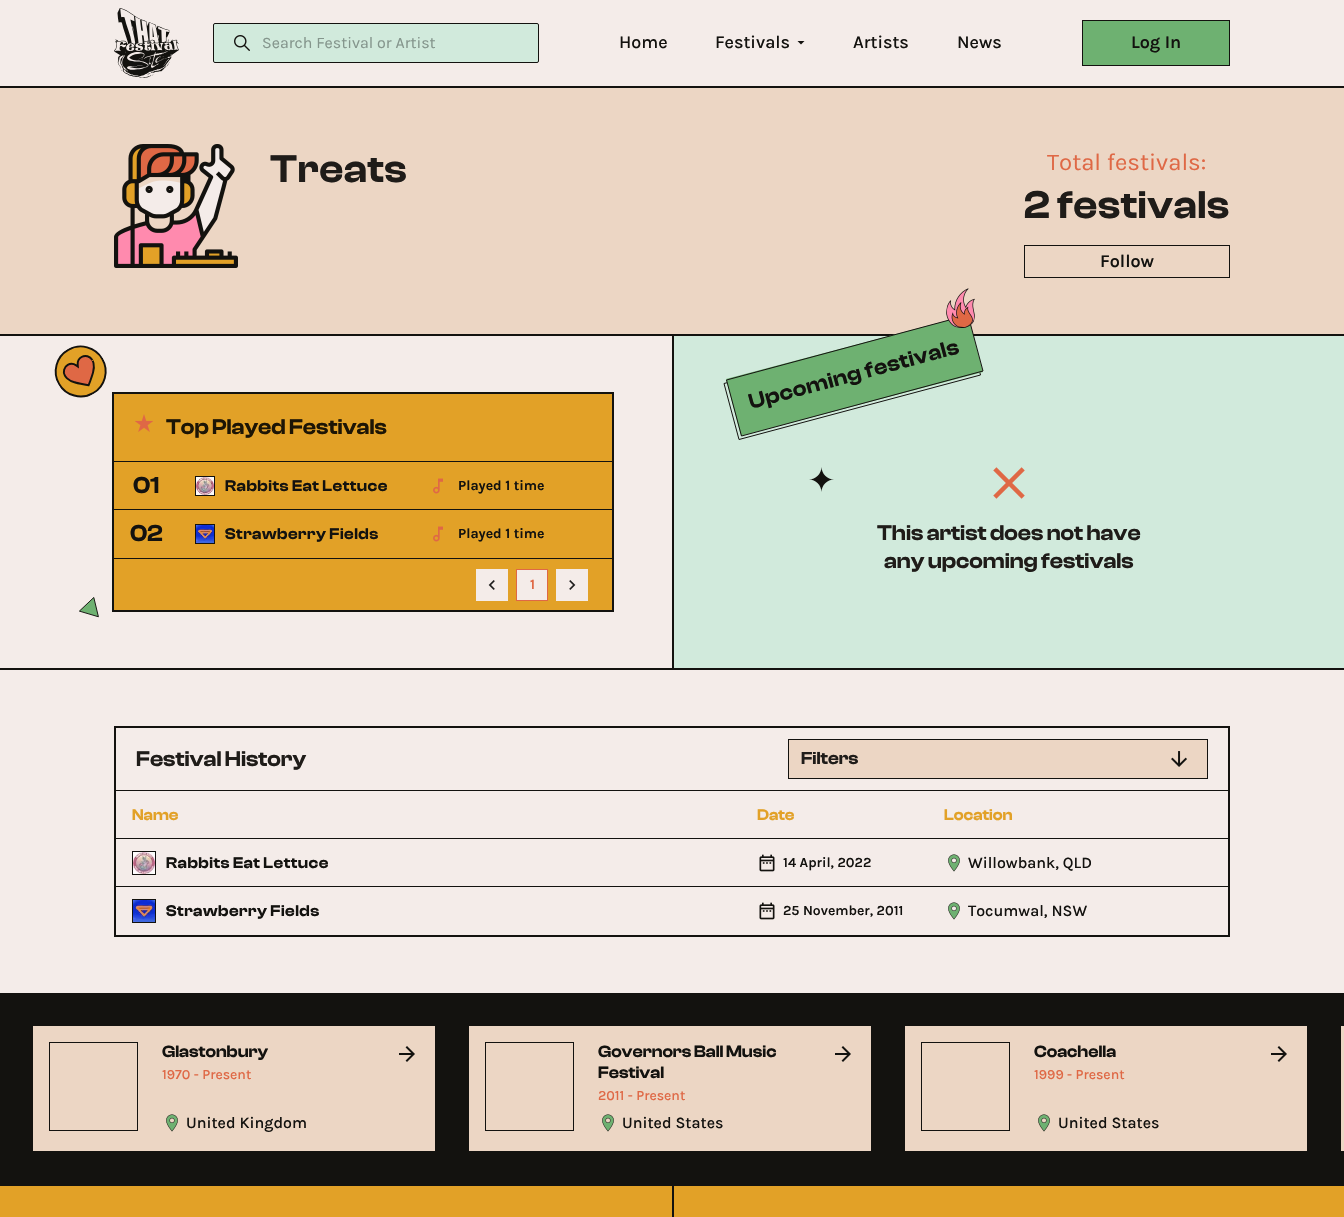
void draw(SkCanvas* canvas) {
    SkPaint paint;
    paint.setAntiAlias(true);
    auto spacedText = [&](const char* s, float x, float y, const SkFont& font, const SkPaint& ink, float letter, float word) {
        std::vector<SkGlyphID> glyphs(font.countText(s, strlen(s), SkTextEncoding::kUTF8));
        std::vector<float> xs(glyphs.size());
        font.textToGlyphs(s, strlen(s), SkTextEncoding::kUTF8, glyphs);
        font.getXPos(glyphs, xs, x);
        float extra = 0;
        for (size_t i = 0; i < glyphs.size(); i++) {
            xs[i] += extra;
            extra += letter + word * (glyphs[i] == font.unicharToGlyph(' '));
        }
        canvas->drawTextBlob(SkTextBlob::MakeFromPosHGlyphs(glyphs, xs, y, font), 0, 0, ink);
    };
    canvas->clear(0xFFF4ECE9);
    paint.setColor(0xFF13120F);
    canvas->drawRect(SkRect::MakeXYWH(0, 86, 1344, 2), paint);
    canvas->drawImageRect(SkImages::DeferredFromEncodedData(SkData::MakeFromFileName("img1.png")), SkRect::MakeXYWH(114, 8, 65, 70), SkSamplingOptions());
    paint.setColor(0xFFD1EADC);
    canvas->drawRoundRect(SkRect::MakeXYWH(213.5f, 23.5f, 325, 39), 1.5f, 1.5f, paint);
    paint.setStyle(SkPaint::kStroke_Style);
    paint.setStrokeWidth(1);
    paint.setColor(0xFF13120F);
    canvas->drawRoundRect(SkRect::MakeXYWH(213.5f, 23.5f, 325, 39), 1.5f, 1.5f, paint);
    canvas->drawImageRect(SkImages::DeferredFromEncodedData(SkData::MakeFromFileName("img2.png")), SkRect::MakeXYWH(234, 35, 16, 16), SkSamplingOptions());
    SkFont font1(fontMgr->matchFamilyStyle("Karla", SkFontStyle::Normal()), 16);
    font1.setSubpixel(true);
    paint.setStyle(SkPaint::kFill_Style);
    paint.setColor(0xFF84958C);
    canvas->drawString("Search Festival or Artist", 262, 48, font1, paint);
    SkFont font2(fontMgr->matchFamilyStyle("Karla", SkFontStyle(500, SkFontStyle::kNormal_Width, SkFontStyle::kUpright_Slant)), 18);
    font2.setSubpixel(true);
    paint.setColor(0xFF13120F);
    canvas->drawString("Home", 619, 48, font2, paint);
    canvas->drawString("Festivals", 715, 48, font2, paint);
    canvas->drawPath(SkPathBuilder().moveTo(797.5f, 41).lineTo(801, 44.5f).lineTo(804.5f, 41).close().detach(), paint);
    canvas->drawString("Artists", 853, 48, font2, paint);
    canvas->drawString("News", 957, 48, font2, paint);
    paint.setColor(0xFF6EB171);
    canvas->drawRect(SkRect::MakeXYWH(1082.5f, 20.5f, 147, 45), paint);
    paint.setStyle(SkPaint::kStroke_Style);
    paint.setColor(0xFF13120F);
    canvas->drawRect(SkRect::MakeXYWH(1082.5f, 20.5f, 147, 45), paint);
    SkFont font3(fontMgr->matchFamilyStyle("Karla", SkFontStyle(600, SkFontStyle::kNormal_Width, SkFontStyle::kUpright_Slant)), 18);
    font3.setSubpixel(true);
    paint.setStyle(SkPaint::kFill_Style);
    canvas->drawString("Log In", 1131, 48, font3, paint);
    paint.setColor(0xFFECD6C4);
    canvas->drawRect(SkRect::MakeXYWH(0, 88, 1344, 246), paint);
    paint.setColor(0xFF13120F);
    canvas->drawRect(SkRect::MakeXYWH(0, 334, 1344, 2), paint);
    canvas->drawImageRect(SkImages::DeferredFromEncodedData(SkData::MakeFromFileName("img3.png")), SkRect::MakeXYWH(114, 144, 124, 124), SkSamplingOptions());
    SkFont font4(fontMgr->matchFamilyStyle("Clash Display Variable", SkFontStyle(600, SkFontStyle::kNormal_Width, SkFontStyle::kUpright_Slant)), 40);
    font4.setSubpixel(true);
    paint.setColor(0xFF1F1C19);
    spacedText("Treats", 270, 182, font4, paint, 0.5f, 0);
    SkFont font5(fontMgr->matchFamilyStyle("Karla", SkFontStyle::Normal()), 24);
    font5.setSubpixel(true);
    paint.setColor(0xFFDF6845);
    canvas->drawString("Total festivals:", 1047, 170, font5, paint);
    paint.setColor(0xFF1F1C19);
    spacedText("2 festivals", 1024, 218, font4, paint, 0.5f, 0);
    paint.setStyle(SkPaint::kStroke_Style);
    paint.setColor(0xFF13120F);
    canvas->drawRect(SkRect::MakeXYWH(1024.5f, 245.5f, 205, 32), paint);
    paint.setStyle(SkPaint::kFill_Style);
    canvas->drawString("Follow", 1100, 267, font3, paint);
    canvas->drawImageRect(SkImages::DeferredFromEncodedData(SkData::MakeFromFileName("img4.png")), SkRect::MakeXYWH(54, 345, 53, 273), SkSamplingOptions());
    paint.setColor(0xFFE2A127);
    canvas->drawRect(SkRect::MakeXYWH(113, 393, 500, 218), paint);
    paint.setStyle(SkPaint::kStroke_Style);
    paint.setStrokeWidth(2);
    paint.setColor(0xFF13120F);
    canvas->drawRect(SkRect::MakeXYWH(113, 393, 500, 218), paint);
    paint.setStyle(SkPaint::kFill_Style);
    canvas->drawRect(SkRect::MakeXYWH(114, 461, 498, 1), paint);
    canvas->drawImageRect(SkImages::DeferredFromEncodedData(SkData::MakeFromFileName("img5.png")), SkRect::MakeXYWH(135, 414, 18, 18), SkSamplingOptions());
    SkFont font6(fontMgr->matchFamilyStyle("Clash Display Variable", SkFontStyle(600, SkFontStyle::kNormal_Width, SkFontStyle::kUpright_Slant)), 22);
    font6.setSubpixel(true);
    paint.setColor(0xFF1D1505);
    canvas->drawString("Top Played Festivals", 166, 434, font6, paint);
    paint.setColor(0xFF13120F);
    canvas->drawRect(SkRect::MakeXYWH(114, 509, 498, 1), paint);
    SkFont font7(fontMgr->matchFamilyStyle("Clash Display Variable", SkFontStyle(600, SkFontStyle::kNormal_Width, SkFontStyle::kUpright_Slant)), 24);
    font7.setSubpixel(true);
    canvas->drawString("01", 133, 493, font7, paint);
    paint.setStyle(SkPaint::kStroke_Style);
    paint.setStrokeWidth(1);
    canvas->drawRect(SkRect::MakeXYWH(195.5f, 476.5f, 19, 19), paint);
    canvas->drawImageRect(SkImages::DeferredFromEncodedData(SkData::MakeFromFileName("img6.png")), SkRect::MakeXYWH(196, 477, 18, 18), SkSamplingOptions());
    SkFont font8(fontMgr->matchFamilyStyle("Clash Display Variable", SkFontStyle(600, SkFontStyle::kNormal_Width, SkFontStyle::kUpright_Slant)), 16);
    font8.setSubpixel(true);
    paint.setStyle(SkPaint::kFill_Style);
    spacedText("Rabbits Eat Lettuce", 225, 491, font8, paint, 0.5f, 0);
    canvas->drawImageRect(SkImages::DeferredFromEncodedData(SkData::MakeFromFileName("img7.png")), SkRect::MakeXYWH(433, 478, 10, 16), SkSamplingOptions());
    SkFont font9(fontMgr->matchFamilyStyle("Karla", SkFontStyle::Bold()), 14);
    font9.setSubpixel(true);
    canvas->drawString("Played 1 time", 458, 490, font9, paint);
    canvas->drawString("02", 130, 541, font7, paint);
    paint.setStyle(SkPaint::kStroke_Style);
    canvas->drawRect(SkRect::MakeXYWH(195.5f, 524.5f, 19, 19), paint);
    canvas->drawImageRect(SkImages::DeferredFromEncodedData(SkData::MakeFromFileName("img8.png")), SkRect::MakeXYWH(196, 525, 18, 18), SkSamplingOptions());
    paint.setStyle(SkPaint::kFill_Style);
    spacedText("Strawberry Fields", 225, 539, font8, paint, 0.5f, 0);
    canvas->drawImageRect(SkImages::DeferredFromEncodedData(SkData::MakeFromFileName("img7.png")), SkRect::MakeXYWH(433, 526, 10, 16), SkSamplingOptions());
    canvas->drawString("Played 1 time", 458, 538, font9, paint);
    canvas->drawRect(SkRect::MakeXYWH(114, 558, 498, 1), paint);
    paint.setColor(0xFFF4ECE9);
    canvas->drawRect(SkRect::MakeXYWH(476, 569, 32, 32), paint);
    canvas->drawImageRect(SkImages::DeferredFromEncodedData(SkData::MakeFromFileName("img9.png")), SkRect::MakeXYWH(488, 580, 7, 10), SkSamplingOptions());
    canvas->drawRect(SkRect::MakeXYWH(516.5f, 569.5f, 31, 31), paint);
    paint.setStyle(SkPaint::kStroke_Style);
    paint.setColor(0xFFDF6845);
    canvas->drawRect(SkRect::MakeXYWH(516.5f, 569.5f, 31, 31), paint);
    paint.setStyle(SkPaint::kFill_Style);
    canvas->drawString("1", 530, 589, font9, paint);
    paint.setColor(0xFFF4ECE9);
    canvas->drawRect(SkRect::MakeXYWH(556, 569, 32, 32), paint);
    canvas->drawImageRect(SkImages::DeferredFromEncodedData(SkData::MakeFromFileName("img10.png")), SkRect::MakeXYWH(569, 580, 7, 10), SkSamplingOptions());
    paint.setColor(0xFF13120F);
    canvas->drawRect(SkRect::MakeXYWH(672, 336, 2, 332), paint);
    paint.setColor(0xFFD1EADC);
    canvas->drawRect(SkRect::MakeXYWH(674, 336, 670, 332), paint);
    canvas->drawImageRect(SkImages::DeferredFromEncodedData(SkData::MakeFromFileName("img11.png")), SkRect::MakeXYWH(809, 467, 25, 25), SkSamplingOptions());
    canvas->drawPath(SkPathBuilder().moveTo(724, 383).lineTo(966, 318).lineTo(981, 375).lineTo(739, 440).close().detach(), paint);
    paint.setStyle(SkPaint::kStroke_Style);
    paint.setColor(0xFF13120F);
    canvas->drawPath(SkPathBuilder().moveTo(724, 383.5f).lineTo(965.5f, 319).lineTo(980.5f, 375).lineTo(739, 439.5f).close().detach(), paint);
    paint.setStyle(SkPaint::kFill_Style);
    paint.setColor(0xFF6EB171);
    canvas->drawPath(SkPathBuilder().moveTo(726, 379).lineTo(968, 315).lineTo(983, 372).lineTo(741, 436).close().detach(), paint);
    paint.setStyle(SkPaint::kStroke_Style);
    paint.setColor(0xFF13120F);
    canvas->drawPath(SkPathBuilder().moveTo(726.5f, 380).lineTo(968, 315).lineTo(983, 371).lineTo(741.5f, 436).close().detach(), paint);
    canvas->drawImageRect(SkImages::DeferredFromEncodedData(SkData::MakeFromFileName("img12.png")), SkRect::MakeXYWH(946, 288, 29, 40), SkSamplingOptions());
    paint.setStyle(SkPaint::kFill_Style);
    canvas->save();
    canvas->rotate(-15, 751, 409);
    spacedText("Upcoming festivals", 751, 409, font6, paint, 0.5f, 0);
    canvas->restore();
    canvas->drawImageRect(SkImages::DeferredFromEncodedData(SkData::MakeFromFileName("img13.png")), SkRect::MakeXYWH(993, 467, 32, 32), SkSamplingOptions());
    paint.setColor(0xFF1F1C19);
    canvas->drawString("This artist does not have", 877, 540, font6, paint);
    canvas->drawString("any upcoming festivals", 884, 568, font6, paint);
    paint.setColor(0xFF13120F);
    canvas->drawRect(SkRect::MakeXYWH(0, 668, 1344, 2), paint);
    paint.setStyle(SkPaint::kStroke_Style);
    paint.setStrokeWidth(2);
    canvas->drawRect(SkRect::MakeXYWH(115, 727, 1114, 209), paint);
    paint.setStyle(SkPaint::kFill_Style);
    canvas->drawRect(SkRect::MakeXYWH(116, 790, 1112, 1), paint);
    paint.setColor(0xFF1F1C19);
    canvas->drawString("Festival History", 136, 766, font6, paint);
    paint.setColor(0xFFECD6C4);
    canvas->drawRect(SkRect::MakeXYWH(788.5f, 739.5f, 419, 39), paint);
    paint.setStyle(SkPaint::kStroke_Style);
    paint.setStrokeWidth(1);
    paint.setColor(0xFF13120F);
    canvas->drawRect(SkRect::MakeXYWH(788.5f, 739.5f, 419, 39), paint);
    SkFont font10(fontMgr->matchFamilyStyle("Clash Display Variable", SkFontStyle(600, SkFontStyle::kNormal_Width, SkFontStyle::kUpright_Slant)), 18);
    font10.setSubpixel(true);
    paint.setStyle(SkPaint::kFill_Style);
    paint.setColor(0xFF1F1C19);
    canvas->drawString("Filters", 801, 764, font10, paint);
    canvas->drawImageRect(SkImages::DeferredFromEncodedData(SkData::MakeFromFileName("img14.png")), SkRect::MakeXYWH(1171, 751, 16, 16), SkSamplingOptions());
    paint.setColor(0xFF13120F);
    canvas->drawRect(SkRect::MakeXYWH(116, 838, 1112, 1), paint);
    paint.setColor(0xFFE2A127);
    canvas->drawString("Name", 132, 820, font8, paint);
    canvas->drawString("Date", 757, 820, font8, paint);
    canvas->drawString("Location", 944, 820, font8, paint);
    paint.setColor(0xFF13120F);
    canvas->drawRect(SkRect::MakeXYWH(116, 886, 1112, 1), paint);
    paint.setStyle(SkPaint::kStroke_Style);
    canvas->drawRect(SkRect::MakeXYWH(132.5f, 851.5f, 23, 23), paint);
    canvas->drawImageRect(SkImages::DeferredFromEncodedData(SkData::MakeFromFileName("img15.png")), SkRect::MakeXYWH(133, 852, 22, 22), SkSamplingOptions());
    paint.setStyle(SkPaint::kFill_Style);
    spacedText("Rabbits Eat Lettuce", 166, 868, font8, paint, 0.5f, 0);
    canvas->drawImageRect(SkImages::DeferredFromEncodedData(SkData::MakeFromFileName("img16.png")), SkRect::MakeXYWH(759, 854, 16, 18), SkSamplingOptions());
    SkFont font11(fontMgr->matchFamilyStyle("Karla", SkFontStyle(600, SkFontStyle::kNormal_Width, SkFontStyle::kUpright_Slant)), 14);
    font11.setSubpixel(true);
    canvas->drawString("14 April, 2022", 783, 867, font11, paint);
    canvas->drawImageRect(SkImages::DeferredFromEncodedData(SkData::MakeFromFileName("img17.png")), SkRect::MakeXYWH(948, 854, 12, 18), SkSamplingOptions());
    SkFont font12(fontMgr->matchFamilyStyle("Karla", SkFontStyle(500, SkFontStyle::kNormal_Width, SkFontStyle::kUpright_Slant)), 16);
    font12.setSubpixel(true);
    canvas->drawString("Willowbank, QLD", 968, 868, font12, paint);
    paint.setStyle(SkPaint::kStroke_Style);
    canvas->drawRect(SkRect::MakeXYWH(132.5f, 899.5f, 23, 23), paint);
    canvas->drawImageRect(SkImages::DeferredFromEncodedData(SkData::MakeFromFileName("img18.png")), SkRect::MakeXYWH(133, 900, 22, 22), SkSamplingOptions());
    paint.setStyle(SkPaint::kFill_Style);
    spacedText("Strawberry Fields", 166, 916, font8, paint, 0.5f, 0);
    canvas->drawImageRect(SkImages::DeferredFromEncodedData(SkData::MakeFromFileName("img16.png")), SkRect::MakeXYWH(759, 902, 16, 18), SkSamplingOptions());
    canvas->drawString("25 November, 2011", 783, 915, font11, paint);
    canvas->drawImageRect(SkImages::DeferredFromEncodedData(SkData::MakeFromFileName("img17.png")), SkRect::MakeXYWH(948, 902, 12, 18), SkSamplingOptions());
    canvas->drawString("Tocumwal, NSW", 968, 916, font12, paint);
    canvas->drawRect(SkRect::MakeXYWH(0, 993, 1344, 193), paint);
    paint.setColor(0xFFECD6C4);
    canvas->drawRect(SkRect::MakeXYWH(33, 1026, 402, 125), paint);
    paint.setStyle(SkPaint::kStroke_Style);
    paint.setColor(0xFF13120F);
    canvas->drawRect(SkRect::MakeXYWH(49.5f, 1042.5f, 88, 88), paint);
    SkFont font13(fontMgr->matchFamilyStyle("Clash Display Variable", SkFontStyle(600, SkFontStyle::kNormal_Width, SkFontStyle::kUpright_Slant)), 17);
    font13.setSubpixel(true);
    paint.setStyle(SkPaint::kFill_Style);
    canvas->drawString("Glastonbury", 162, 1057, font13, paint);
    SkFont font14(fontMgr->matchFamilyStyle("Karla", SkFontStyle(500, SkFontStyle::kNormal_Width, SkFontStyle::kUpright_Slant)), 14);
    font14.setSubpixel(true);
    paint.setColor(0xFFDF6845);
    canvas->drawString("1970 - Present", 162, 1079, font14, paint);
    canvas->drawImageRect(SkImages::DeferredFromEncodedData(SkData::MakeFromFileName("img19.png")), SkRect::MakeXYWH(166, 1114, 12, 18), SkSamplingOptions());
    paint.setColor(0xFF13120F);
    canvas->drawString("United Kingdom", 186, 1128, font12, paint);
    canvas->drawImageRect(SkImages::DeferredFromEncodedData(SkData::MakeFromFileName("img20.png")), SkRect::MakeXYWH(399, 1046, 16, 16), SkSamplingOptions());
    paint.setColor(0xFFECD6C4);
    canvas->drawRect(SkRect::MakeXYWH(469, 1026, 402, 125), paint);
    paint.setStyle(SkPaint::kStroke_Style);
    paint.setColor(0xFF13120F);
    canvas->drawRect(SkRect::MakeXYWH(485.5f, 1042.5f, 88, 88), paint);
    paint.setStyle(SkPaint::kFill_Style);
    canvas->drawString("Governors Ball Music", 598, 1057, font13, paint);
    canvas->drawString("Festival", 598, 1078, font13, paint);
    paint.setColor(0xFFDF6845);
    canvas->drawString("2011 - Present", 598, 1100, font14, paint);
    canvas->drawImageRect(SkImages::DeferredFromEncodedData(SkData::MakeFromFileName("img19.png")), SkRect::MakeXYWH(602, 1114, 12, 18), SkSamplingOptions());
    paint.setColor(0xFF13120F);
    canvas->drawString("United States", 622, 1128, font12, paint);
    canvas->drawImageRect(SkImages::DeferredFromEncodedData(SkData::MakeFromFileName("img20.png")), SkRect::MakeXYWH(835, 1046, 16, 16), SkSamplingOptions());
    paint.setColor(0xFFECD6C4);
    canvas->drawRect(SkRect::MakeXYWH(905, 1026, 402, 125), paint);
    paint.setStyle(SkPaint::kStroke_Style);
    paint.setColor(0xFF13120F);
    canvas->drawRect(SkRect::MakeXYWH(921.5f, 1042.5f, 88, 88), paint);
    paint.setStyle(SkPaint::kFill_Style);
    canvas->drawString("Coachella", 1034, 1057, font13, paint);
    paint.setColor(0xFFDF6845);
    canvas->drawString("1999 - Present", 1034, 1079, font14, paint);
    canvas->drawImageRect(SkImages::DeferredFromEncodedData(SkData::MakeFromFileName("img19.png")), SkRect::MakeXYWH(1038, 1114, 12, 18), SkSamplingOptions());
    paint.setColor(0xFF13120F);
    canvas->drawString("United States", 1058, 1128, font12, paint);
    canvas->drawImageRect(SkImages::DeferredFromEncodedData(SkData::MakeFromFileName("img20.png")), SkRect::MakeXYWH(1271, 1046, 16, 16), SkSamplingOptions());
    paint.setColor(0xFFECD6C4);
    canvas->drawRect(SkRect::MakeXYWH(1340.5f, 1025.5f, 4, 126), paint);
    paint.setStyle(SkPaint::kStroke_Style);
    paint.setColor(0xFF13120F);
    canvas->drawRect(SkRect::MakeXYWH(1340.5f, 1025.5f, 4, 126), paint);
    paint.setStyle(SkPaint::kFill_Style);
    paint.setColor(0xFFE2A127);
    canvas->drawRect(SkRect::MakeXYWH(0, 1186, 1344, 31), paint);
    paint.setColor(0xFF13120F);
    canvas->drawRect(SkRect::MakeXYWH(672, 1186, 2, 31), paint);
}
